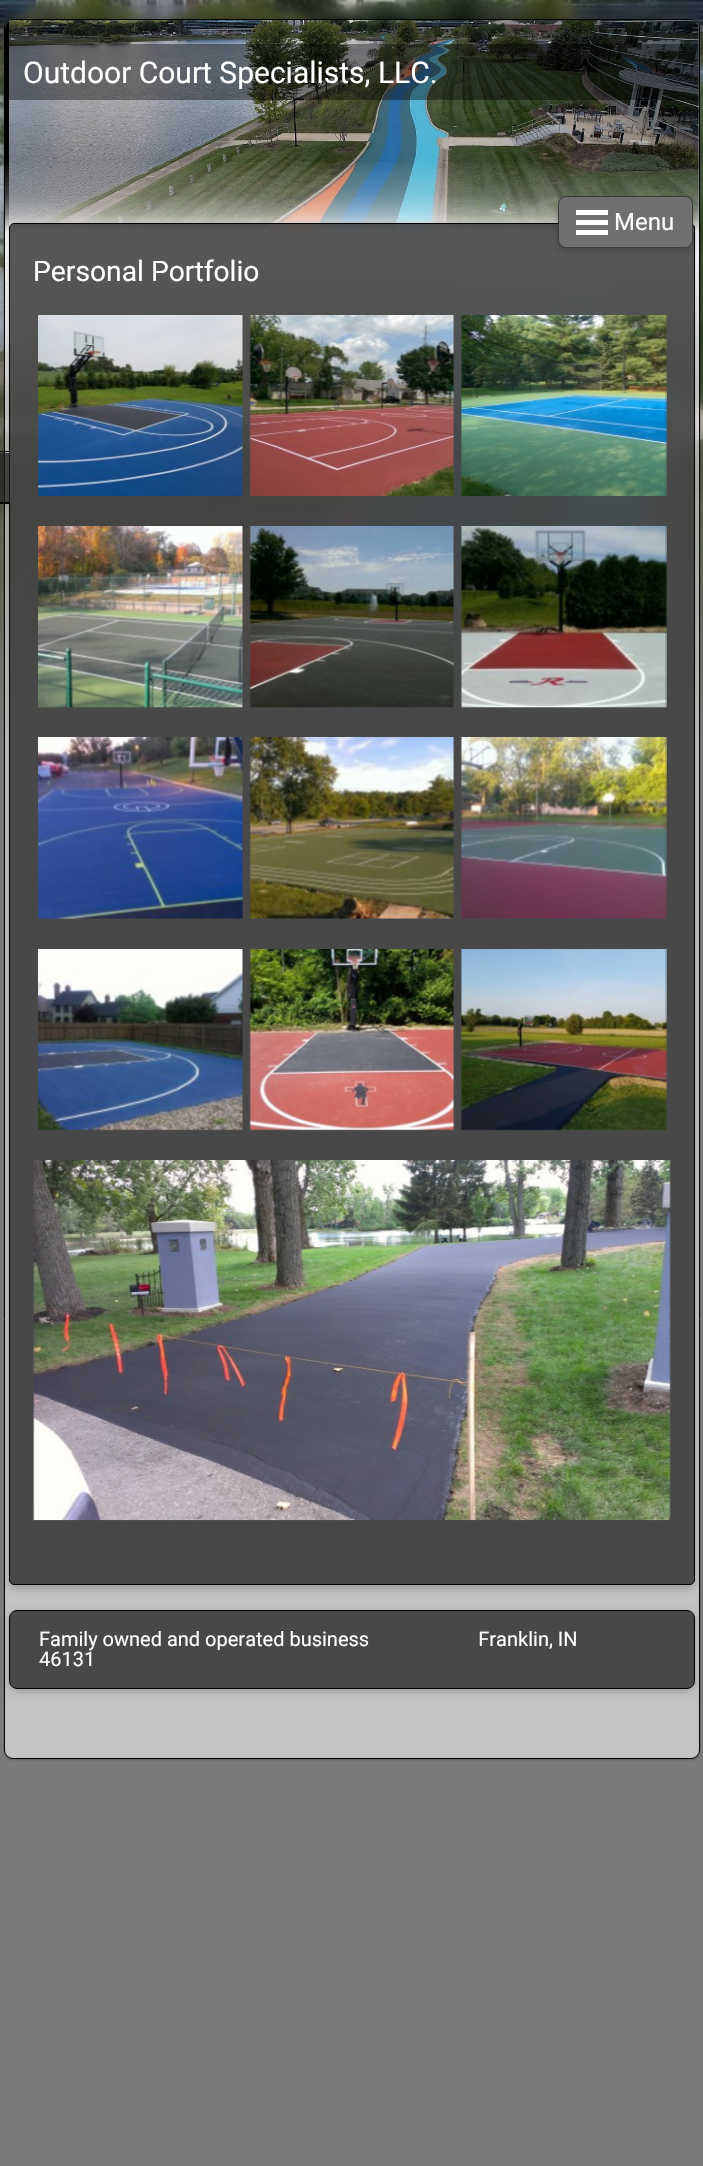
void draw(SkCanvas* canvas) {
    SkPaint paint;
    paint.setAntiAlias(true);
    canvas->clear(0xFFFFFFFF);
    canvas->drawImageRect(SkImages::DeferredFromEncodedData(SkData::MakeFromFileName("img1.png")), SkRect::MakeXYWH(0, 0, 703, 741), SkSamplingOptions());
    canvas->drawImageRect(SkImages::DeferredFromEncodedData(SkData::MakeFromFileName("img2.png")), SkRect::MakeXYWH(0, 0, 703, 741), SkSamplingOptions());
    {
        const SkColor colors[] = {0x007A7A7A, 0xFF7A7A7A};
        const float stops[] = {0, 0.17f};
        const SkPoint ends[] = {{352, 375}, {352, 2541}};
        paint.setShader(SkGradientShader::MakeLinear(ends, colors, stops, 2, SkTileMode::kClamp));
        paint.setAlpha(255);
    }
    canvas->drawRect(SkRect::MakeXYWH(0, 384, 703, 1782), paint);
    canvas->save();
    canvas->clipPath(SkPathBuilder(SkPathFillType::kEvenOdd).moveTo(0, 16).lineTo(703, 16).lineTo(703, 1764).lineTo(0, 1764).close().moveTo(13, 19).lineTo(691, 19).cubicTo(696, 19, 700, 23, 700, 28).lineTo(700, 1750).cubicTo(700, 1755, 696, 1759, 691, 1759).lineTo(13, 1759).cubicTo(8, 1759, 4, 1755, 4, 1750).lineTo(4, 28).cubicTo(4, 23, 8, 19, 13, 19).close().detach(), true);
    paint.setShader(nullptr);
    paint.setColor(0x3B000000);
    paint.setMaskFilter(SkMaskFilter::MakeBlur(kNormal_SkBlurStyle, 1));
    canvas->drawRoundRect(SkRect::MakeXYWH(4, 20, 696, 1740), 9, 9, paint);
    paint.setMaskFilter(nullptr);
    canvas->restore();
    paint.setColor(0x8CFFFFFF);
    canvas->drawRoundRect(SkRect::MakeXYWH(4.5f, 19.5f, 695, 1739), 8.5f, 8.5f, paint);
    paint.setStyle(SkPaint::kStroke_Style);
    paint.setStrokeWidth(1);
    paint.setColor(0xFF000000);
    canvas->drawRoundRect(SkRect::MakeXYWH(4.5f, 19.5f, 695, 1739), 8.5f, 8.5f, paint);
    canvas->drawImageRect(SkImages::DeferredFromEncodedData(SkData::MakeFromFileName("img3.png")), SkRect::MakeXYWH(5, 20, 694, 213), SkSamplingOptions());
    paint.setStyle(SkPaint::kFill_Style);
    {
        const SkColor colors[] = {0x00FFFFFF, 0x40FFFFFF, 0x80FFFFFF, 0xFFFFFFFF};
        const float stops[] = {0, 0.5f, 0.75f, 1};
        const SkPoint ends[] = {{352, 159}, {352, 233}};
        paint.setShader(SkGradientShader::MakeLinear(ends, colors, stops, 4, SkTileMode::kClamp));
        paint.setAlpha(255);
    }
    canvas->drawRect(SkRect::MakeXYWH(5, 162, 694, 71), paint);
    {
        const SkColor colors[] = {0x00FFFFFF, 0xFFFFFFFF};
        const float stops[] = {0, 0.9f};
        const SkPoint ends[] = {{352, 479}, {352, 233}};
        paint.setShader(SkGradientShader::MakeLinear(ends, colors, stops, 2, SkTileMode::kClamp));
        paint.setAlpha(255);
    }
    canvas->drawRect(SkRect::MakeXYWH(5, 233, 694, 239), paint);
    paint.setShader(nullptr);
    paint.setColor(0x66000000);
    canvas->drawRect(SkRect::MakeXYWH(9, 44, 690, 56), paint);
    SkFont font1(fontMgr->matchFamilyStyle("Roboto", SkFontStyle::Normal()), 30);
    font1.setSubpixel(true);
    paint.setColor(0xFFFFFFFF);
    canvas->drawString("Outdoor Court Specialists, LLC.", 23, 83, font1, paint);
    canvas->save();
    canvas->clipPath(SkPathBuilder(SkPathFillType::kEvenOdd).moveTo(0, 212).lineTo(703, 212).lineTo(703, 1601).lineTo(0, 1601).close().moveTo(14, 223).lineTo(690, 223).cubicTo(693, 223, 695, 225, 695, 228).lineTo(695, 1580).cubicTo(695, 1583, 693, 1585, 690, 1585).lineTo(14, 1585).cubicTo(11, 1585, 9, 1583, 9, 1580).lineTo(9, 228).cubicTo(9, 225, 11, 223, 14, 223).close().detach(), true);
    paint.setColor(0x3B000000);
    paint.setMaskFilter(SkMaskFilter::MakeBlur(kNormal_SkBlurStyle, 4));
    canvas->drawRoundRect(SkRect::MakeXYWH(9, 225, 686, 1363), 5, 5, paint);
    paint.setMaskFilter(nullptr);
    canvas->restore();
    paint.setColor(0xBF1F1F1F);
    canvas->drawRoundRect(SkRect::MakeXYWH(9.5f, 223.5f, 685, 1361), 4.5f, 4.5f, paint);
    paint.setStyle(SkPaint::kStroke_Style);
    paint.setColor(0xFF000000);
    canvas->drawRoundRect(SkRect::MakeXYWH(9.5f, 223.5f, 685, 1361), 4.5f, 4.5f, paint);
    paint.setStyle(SkPaint::kFill_Style);
    paint.setColor(0x3B000000);
    paint.setMaskFilter(SkMaskFilter::MakeBlur(kNormal_SkBlurStyle, 4));
    canvas->drawRoundRect(SkRect::MakeXYWH(558, 199, 135, 51), 8, 8, paint);
    paint.setMaskFilter(nullptr);
    paint.setColor(0xFF707070);
    canvas->drawRoundRect(SkRect::MakeXYWH(558.5f, 196.5f, 134, 51), 7.5f, 7.5f, paint);
    paint.setStyle(SkPaint::kStroke_Style);
    paint.setColor(0xFF3B3B3B);
    canvas->drawRoundRect(SkRect::MakeXYWH(558.5f, 196.5f, 134, 51), 7.5f, 7.5f, paint);
    paint.setStyle(SkPaint::kFill_Style);
    paint.setColor(0xFFFFFFFF);
    canvas->drawRect(SkRect::MakeXYWH(576, 210, 32, 5), paint);
    canvas->drawRect(SkRect::MakeXYWH(576, 220, 32, 5), paint);
    canvas->drawRect(SkRect::MakeXYWH(576, 230, 32, 5), paint);
    SkFont font2(fontMgr->matchFamilyStyle("Roboto", SkFontStyle::Normal()), 24);
    font2.setSubpixel(true);
    canvas->drawString("Menu", 614, 230, font2, paint);
    SkFont font3(fontMgr->matchFamilyStyle("Roboto", SkFontStyle::Normal()), 28.25f);
    font3.setSubpixel(true);
    canvas->drawString("Personal Portfolio", 33, 281, font3, paint);
    canvas->drawImageRect(SkImages::DeferredFromEncodedData(SkData::MakeFromFileName("img4.png")), SkRect::MakeXYWH(38, 315, 205, 182), SkSamplingOptions());
    canvas->drawImageRect(SkImages::DeferredFromEncodedData(SkData::MakeFromFileName("img5.png")), SkRect::MakeXYWH(249, 315, 206, 182), SkSamplingOptions());
    canvas->drawImageRect(SkImages::DeferredFromEncodedData(SkData::MakeFromFileName("img6.png")), SkRect::MakeXYWH(460, 315, 207, 182), SkSamplingOptions());
    canvas->drawImageRect(SkImages::DeferredFromEncodedData(SkData::MakeFromFileName("img7.png")), SkRect::MakeXYWH(38, 526, 205, 182), SkSamplingOptions());
    canvas->drawImageRect(SkImages::DeferredFromEncodedData(SkData::MakeFromFileName("img8.png")), SkRect::MakeXYWH(249, 526, 205, 182), SkSamplingOptions());
    canvas->drawImageRect(SkImages::DeferredFromEncodedData(SkData::MakeFromFileName("img9.png")), SkRect::MakeXYWH(460, 526, 207, 182), SkSamplingOptions());
    canvas->drawImageRect(SkImages::DeferredFromEncodedData(SkData::MakeFromFileName("img10.png")), SkRect::MakeXYWH(38, 737, 205, 182), SkSamplingOptions());
    canvas->drawImageRect(SkImages::DeferredFromEncodedData(SkData::MakeFromFileName("img11.png")), SkRect::MakeXYWH(249, 737, 206, 182), SkSamplingOptions());
    canvas->drawImageRect(SkImages::DeferredFromEncodedData(SkData::MakeFromFileName("img12.png")), SkRect::MakeXYWH(460, 737, 207, 182), SkSamplingOptions());
    canvas->drawImageRect(SkImages::DeferredFromEncodedData(SkData::MakeFromFileName("img13.png")), SkRect::MakeXYWH(38, 949, 205, 182), SkSamplingOptions());
    canvas->drawImageRect(SkImages::DeferredFromEncodedData(SkData::MakeFromFileName("img14.png")), SkRect::MakeXYWH(249, 949, 206, 182), SkSamplingOptions());
    canvas->drawImageRect(SkImages::DeferredFromEncodedData(SkData::MakeFromFileName("img15.png")), SkRect::MakeXYWH(460, 949, 207, 182), SkSamplingOptions());
    canvas->drawImageRect(SkImages::DeferredFromEncodedData(SkData::MakeFromFileName("img16.png")), SkRect::MakeXYWH(33, 1160, 638, 361), SkSamplingOptions());
    canvas->save();
    canvas->clipRect(SkRect::MakeXYWH(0, 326, 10, 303));
    canvas->clipPath(SkPathBuilder(SkPathFillType::kEvenOdd).moveTo(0, 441).lineTo(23, 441).lineTo(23, 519).lineTo(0, 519).close().moveTo(-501, 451).lineTo(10, 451).lineTo(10, 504).lineTo(-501, 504).cubicTo(-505.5f, 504, -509, 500.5f, -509, 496).lineTo(-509, 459).cubicTo(-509, 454.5f, -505.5f, 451, -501, 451).close().detach(), true);
    paint.setColor(0x3B000000);
    paint.setMaskFilter(SkMaskFilter::MakeBlur(kNormal_SkBlurStyle, 4));
    canvas->drawRoundRect(SkRect::MakeXYWH(-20, 454, 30, 52), 8, 8, paint);
    paint.setMaskFilter(nullptr);
    canvas->restore();
    paint.setColor(0xBF1F1F1F);
    canvas->drawRect(SkRect::MakeXYWH(0, 453, 10, 49), paint);
    paint.setColor(0xFF000000);
    canvas->drawPath(SkPathBuilder(SkPathFillType::kEvenOdd).moveTo(-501, 451).lineTo(10, 451).lineTo(10, 504).lineTo(-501, 504).cubicTo(-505, 504, -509, 500, -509, 496).lineTo(-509, 459).cubicTo(-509, 455, -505, 451, -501, 451).close().moveTo(-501, 452).lineTo(10, 452).lineTo(10, 502).lineTo(-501, 502).cubicTo(-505, 502, -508, 500, -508, 496).lineTo(-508, 459).cubicTo(-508, 455, -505, 452, -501, 452).close().detach(), paint);
    canvas->save();
    canvas->clipPath(SkPathBuilder(SkPathFillType::kEvenOdd).moveTo(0, 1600).lineTo(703, 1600).lineTo(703, 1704).lineTo(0, 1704).close().moveTo(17, 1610).lineTo(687, 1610).cubicTo(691.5f, 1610, 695, 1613.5f, 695, 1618).lineTo(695, 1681).cubicTo(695, 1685.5f, 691.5f, 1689, 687, 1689).lineTo(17, 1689).cubicTo(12.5f, 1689, 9, 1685.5f, 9, 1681).lineTo(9, 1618).cubicTo(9, 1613.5f, 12.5f, 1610, 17, 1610).close().detach(), true);
    paint.setColor(0x3B000000);
    paint.setMaskFilter(SkMaskFilter::MakeBlur(kNormal_SkBlurStyle, 4));
    canvas->drawRoundRect(SkRect::MakeXYWH(9, 1613, 686, 78), 8, 8, paint);
    paint.setMaskFilter(nullptr);
    canvas->restore();
    paint.setColor(0xBF1F1F1F);
    canvas->drawRoundRect(SkRect::MakeXYWH(9.5f, 1610.5f, 685, 78), 7.5f, 7.5f, paint);
    paint.setStyle(SkPaint::kStroke_Style);
    paint.setColor(0xFF000000);
    canvas->drawRoundRect(SkRect::MakeXYWH(9.5f, 1610.5f, 685, 78), 7.5f, 7.5f, paint);
    SkFont font4(fontMgr->matchFamilyStyle("Roboto", SkFontStyle::Normal()), 20);
    font4.setSubpixel(true);
    paint.setStyle(SkPaint::kFill_Style);
    paint.setColor(0xFFFFFFFF);
    canvas->drawString("Family owned and operated business                      Franklin, IN", 39, 1646, font4, paint);
    canvas->drawString("46131", 39, 1666, font4, paint);
}
